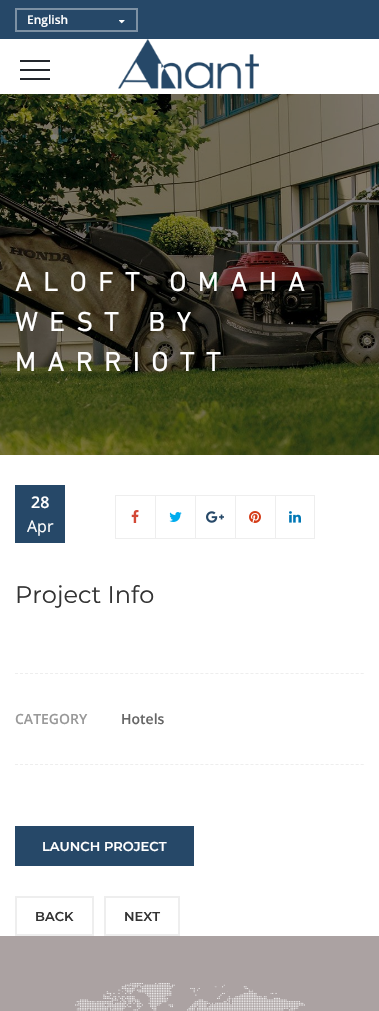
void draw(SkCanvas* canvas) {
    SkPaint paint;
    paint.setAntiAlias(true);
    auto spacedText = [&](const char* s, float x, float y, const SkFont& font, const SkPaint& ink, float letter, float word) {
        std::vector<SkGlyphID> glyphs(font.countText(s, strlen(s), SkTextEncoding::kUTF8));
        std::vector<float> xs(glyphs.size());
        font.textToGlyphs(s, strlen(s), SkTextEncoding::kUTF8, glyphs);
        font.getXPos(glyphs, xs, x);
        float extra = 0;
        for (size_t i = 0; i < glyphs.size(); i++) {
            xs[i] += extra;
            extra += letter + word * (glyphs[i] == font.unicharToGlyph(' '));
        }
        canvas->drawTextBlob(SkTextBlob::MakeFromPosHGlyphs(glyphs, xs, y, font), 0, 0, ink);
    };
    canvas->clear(0xFFFFFFFF);
    paint.setColor(0xFF264868);
    canvas->drawRect(SkRect::MakeXYWH(0, 0, 379, 39), paint);
    canvas->drawImageRect(SkImages::DeferredFromEncodedData(SkData::MakeFromFileName("img1.png")), SkRect::MakeXYWH(119, 20, 6, 4), SkSamplingOptions());
    paint.setStyle(SkPaint::kStroke_Style);
    paint.setStrokeWidth(2);
    paint.setColor(0xFF7D91A4);
    canvas->drawRect(SkRect::MakeXYWH(16, 9, 121, 22), paint);
    SkFont font1(fontMgr->matchFamilyStyle("Open Sans", SkFontStyle(600, SkFontStyle::kNormal_Width, SkFontStyle::kUpright_Slant)), 12);
    font1.setSubpixel(true);
    paint.setStyle(SkPaint::kFill_Style);
    paint.setColor(0xFFFFFFFF);
    canvas->drawString("English", 27, 24, font1, paint);
    paint.setColor(0xFF23282D);
    canvas->drawRect(SkRect::MakeXYWH(20, 69, 30, 2), paint);
    canvas->drawRect(SkRect::MakeXYWH(20, 60, 30, 2), paint);
    canvas->drawRect(SkRect::MakeXYWH(20, 78, 30, 2), paint);
    canvas->drawImageRect(SkImages::DeferredFromEncodedData(SkData::MakeFromFileName("img2.png")), SkRect::MakeXYWH(118, 39, 141, 50), SkSamplingOptions());
    canvas->drawImageRect(SkImages::DeferredFromEncodedData(SkData::MakeFromFileName("img3.png")), SkRect::MakeXYWH(0, 94, 379, 361), SkSamplingOptions());
    SkFont font2(fontMgr->matchFamilyStyle("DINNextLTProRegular", SkFontStyle::Normal()), 28);
    font2.setSubpixel(true);
    paint.setColor(0xFFFFFFFF);
    spacedText("ALOFT OMAHA", 15, 291, font2, paint, 11.25f, 0);
    spacedText("WEST BY", 15, 331, font2, paint, 11.25f, 0);
    spacedText("MARRIOTT", 15, 371, font2, paint, 11.25f, 0);
    paint.setColor(0xFF264868);
    canvas->drawRect(SkRect::MakeXYWH(15, 485, 50, 58), paint);
    SkFont font3(fontMgr->matchFamilyStyle("Open Sans", SkFontStyle(600, SkFontStyle::kNormal_Width, SkFontStyle::kUpright_Slant)), 16);
    font3.setSubpixel(true);
    paint.setColor(0xFFFFFFFF);
    canvas->drawString("28", 31, 508, font3, paint);
    SkFont font4(fontMgr->matchFamilyStyle("Open Sans", SkFontStyle::Normal()), 16);
    font4.setSubpixel(true);
    canvas->drawString("Apr", 27, 532, font4, paint);
    paint.setColor(0xFFEEEEEE);
    canvas->drawRect(SkRect::MakeXYWH(115, 495, 160, 1), paint);
    canvas->drawRect(SkRect::MakeXYWH(115, 538, 160, 1), paint);
    canvas->drawRect(SkRect::MakeXYWH(115, 495, 1, 44), paint);
    canvas->drawImageRect(SkImages::DeferredFromEncodedData(SkData::MakeFromFileName("img4.png")), SkRect::MakeXYWH(131, 510, 8, 13), SkSamplingOptions());
    canvas->drawRect(SkRect::MakeXYWH(155, 495, 1, 44), paint);
    canvas->drawImageRect(SkImages::DeferredFromEncodedData(SkData::MakeFromFileName("img5.png")), SkRect::MakeXYWH(169, 512, 13, 10), SkSamplingOptions());
    canvas->drawRect(SkRect::MakeXYWH(195, 495, 1, 44), paint);
    canvas->drawImageRect(SkImages::DeferredFromEncodedData(SkData::MakeFromFileName("img6.png")), SkRect::MakeXYWH(206, 511, 18, 12), SkSamplingOptions());
    canvas->drawRect(SkRect::MakeXYWH(235, 495, 1, 44), paint);
    canvas->drawImageRect(SkImages::DeferredFromEncodedData(SkData::MakeFromFileName("img7.png")), SkRect::MakeXYWH(249, 511, 12, 12), SkSamplingOptions());
    paint.setStyle(SkPaint::kStroke_Style);
    paint.setStrokeWidth(1);
    canvas->drawRect(SkRect::MakeXYWH(275.5f, 495.5f, 39, 43), paint);
    canvas->drawImageRect(SkImages::DeferredFromEncodedData(SkData::MakeFromFileName("img8.png")), SkRect::MakeXYWH(289, 511, 12, 12), SkSamplingOptions());
    paint.setPathEffect(SkDashPathEffect::Make({{3, 2.01f}}, 0));
    canvas->drawPath(SkPathBuilder().moveTo(15, 673.5f).lineTo(364, 673.5f).detach(), paint);
    paint.setPathEffect(nullptr);
    SkFont font5(fontMgr->matchFamilyStyle("Montserrat", SkFontStyle::Normal()), 24);
    font5.setSubpixel(true);
    paint.setStyle(SkPaint::kFill_Style);
    paint.setColor(0xFF333333);
    canvas->drawString("Project Info", 15, 603, font5, paint);
    paint.setStyle(SkPaint::kStroke_Style);
    paint.setColor(0xFFEEEEEE);
    paint.setPathEffect(SkDashPathEffect::Make({{3, 2.01f}}, 0));
    canvas->drawPath(SkPathBuilder().moveTo(15, 764.5f).lineTo(364, 764.5f).detach(), paint);
    paint.setPathEffect(nullptr);
    SkFont font6(fontMgr->matchFamilyStyle("Open Sans", SkFontStyle(600, SkFontStyle::kNormal_Width, SkFontStyle::kUpright_Slant)), 14);
    font6.setSubpixel(true);
    paint.setStyle(SkPaint::kFill_Style);
    paint.setColor(0xFF999999);
    canvas->drawString("CATEGORY", 15, 724, font6, paint);
    paint.setColor(0xFF666666);
    canvas->drawString("Hotels", 121, 724, font6, paint);
    paint.setColor(0xFF264868);
    canvas->drawRect(SkRect::MakeXYWH(15, 826, 179, 40), paint);
    SkFont font7(fontMgr->matchFamilyStyle("Montserrat", SkFontStyle(600, SkFontStyle::kNormal_Width, SkFontStyle::kUpright_Slant)), 13);
    font7.setSubpixel(true);
    paint.setColor(0xFFFFFFFF);
    canvas->drawString("LAUNCH PROJECT", 42, 851, font7, paint);
    paint.setStyle(SkPaint::kStroke_Style);
    paint.setStrokeWidth(2);
    paint.setColor(0xFFEEEEEE);
    canvas->drawRect(SkRect::MakeXYWH(16, 897, 77, 38), paint);
    paint.setStyle(SkPaint::kFill_Style);
    paint.setColor(0xFF333333);
    canvas->drawString("BACK", 35, 921, font7, paint);
    paint.setStyle(SkPaint::kStroke_Style);
    paint.setColor(0xFFEEEEEE);
    canvas->drawRect(SkRect::MakeXYWH(105, 897, 74, 38), paint);
    paint.setStyle(SkPaint::kFill_Style);
    paint.setColor(0xFF333333);
    canvas->drawString("NEXT", 124, 921, font7, paint);
    paint.setColor(0xFFABA2A2);
    canvas->drawRect(SkRect::MakeXYWH(0, 936, 379, 75), paint);
    canvas->drawImageRect(SkImages::DeferredFromEncodedData(SkData::MakeFromFileName("img9.png")), SkRect::MakeXYWH(75, 983, 230, 28), SkSamplingOptions());
}
